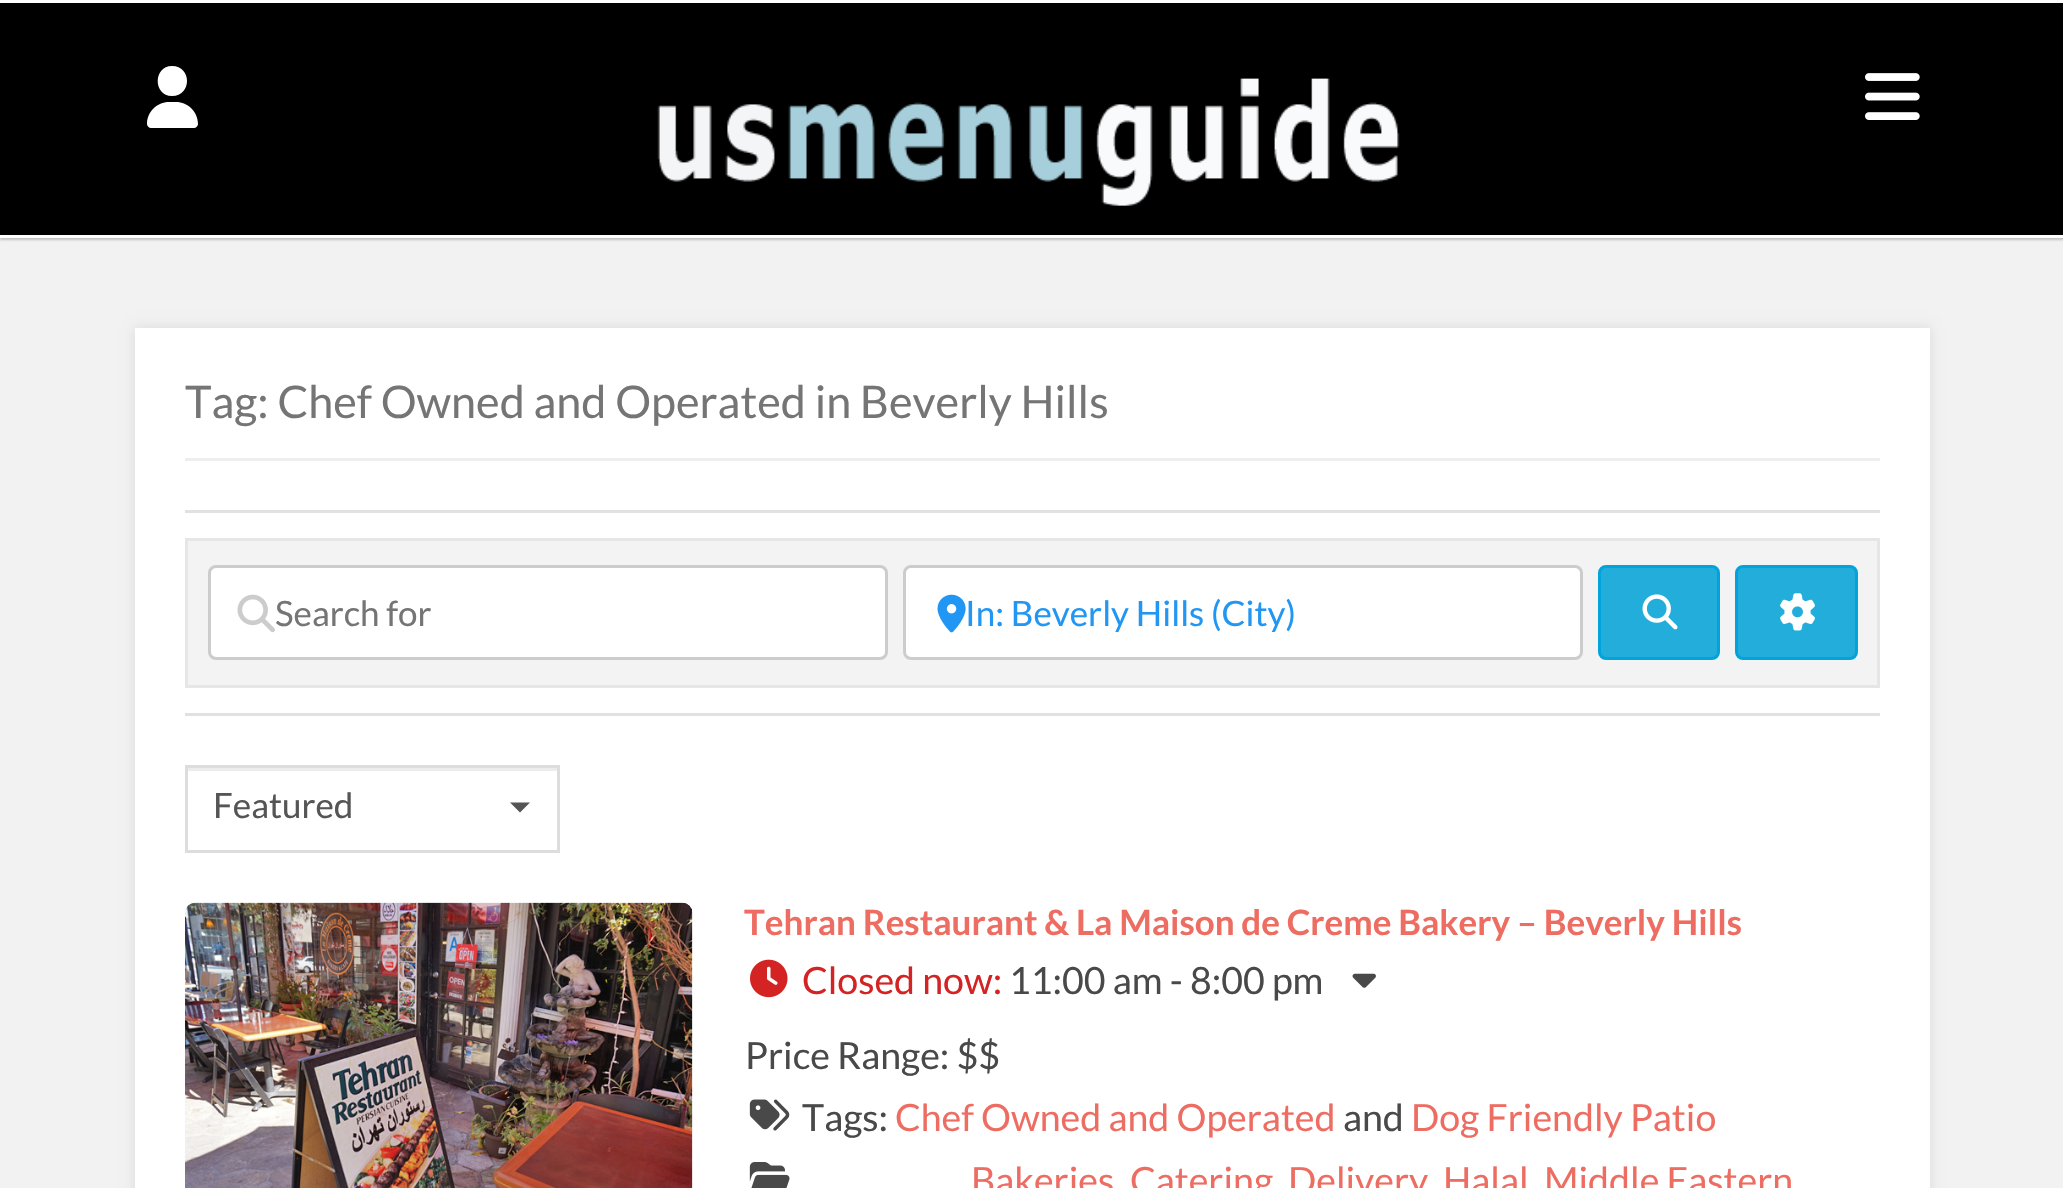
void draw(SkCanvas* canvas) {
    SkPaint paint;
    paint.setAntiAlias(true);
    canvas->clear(0xFFF2F2F2);
    paint.setColor(0x33000000);
    paint.setMaskFilter(SkMaskFilter::MakeBlur(kNormal_SkBlurStyle, 1));
    canvas->drawRect(SkRect::MakeXYWH(0, 3, 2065, 237), paint);
    paint.setMaskFilter(nullptr);
    paint.setColor(0xFF000000);
    canvas->drawRect(SkRect::MakeXYWH(0, 3, 2063, 232), paint);
    paint.setColor(0xFFFFFFFF);
    canvas->drawRect(SkRect::MakeXYWH(0, 0, 2063, 3), paint);
    canvas->drawRect(SkRect::MakeXYWH(0, 235, 2063, 3), paint);
    canvas->drawPath(SkPathBuilder().moveTo(172, 96).cubicTo(192, 96, 192, 66, 172, 66).cubicTo(153, 66, 153, 96, 172, 96).close().moveTo(169, 102).cubicTo(157, 102, 147, 112, 147, 124).cubicTo(147, 126, 149, 128, 151, 128).lineTo(194, 128).cubicTo(196, 128, 198, 126, 198, 124).cubicTo(198, 112, 188, 102, 176, 102).close().detach(), paint);
    canvas->drawImageRect(SkImages::DeferredFromEncodedData(SkData::MakeFromFileName("img1.png")), SkRect::MakeXYWH(657, 78, 743, 128), SkSamplingOptions());
    canvas->drawImageRect(SkImages::DeferredFromEncodedData(SkData::MakeFromFileName("img2.png")), SkRect::MakeXYWH(1865, 73, 55, 47), SkSamplingOptions());
    paint.setColor(0x1A000000);
    paint.setMaskFilter(SkMaskFilter::MakeBlur(kNormal_SkBlurStyle, 6));
    canvas->drawRect(SkRect::MakeXYWH(135, 328, 1795, 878), paint);
    paint.setMaskFilter(nullptr);
    paint.setColor(0xFFFFFFFF);
    canvas->drawRect(SkRect::MakeXYWH(135, 328, 1795, 860), paint);
    paint.setColor(0xFFEEEEEE);
    canvas->drawRect(SkRect::MakeXYWH(185, 458, 1695, 3), paint);
    SkFont font1(fontMgr->matchFamilyStyle("Lato", SkFontStyle::Normal()), 45);
    font1.setSubpixel(true);
    paint.setColor(0xFF757575);
    canvas->drawString("Tag: Chef Owned and Operated in Beverly Hills", 185, 418, font1, paint);
    paint.setColor(0xFFE1E1E1);
    canvas->drawRect(SkRect::MakeXYWH(185, 510, 1695, 3), paint);
    canvas->drawRect(SkRect::MakeXYWH(185, 713, 1695, 3), paint);
    paint.setColor(0xFFF3F3F3);
    canvas->drawRect(SkRect::MakeXYWH(186.5f, 539.5f, 1692, 147), paint);
    paint.setStyle(SkPaint::kStroke_Style);
    paint.setStrokeWidth(3);
    paint.setColor(0xFFE6E6E6);
    canvas->drawRect(SkRect::MakeXYWH(186.5f, 539.5f, 1692, 147), paint);
    paint.setStyle(SkPaint::kFill_Style);
    paint.setColor(0xFFFFFFFF);
    canvas->drawRoundRect(SkRect::MakeXYWH(209.5f, 566.5f, 677, 92), 6.5f, 6.5f, paint);
    paint.setStyle(SkPaint::kStroke_Style);
    paint.setColor(0xFFCCCCCC);
    canvas->drawRoundRect(SkRect::MakeXYWH(209.5f, 566.5f, 677, 92), 6.5f, 6.5f, paint);
    canvas->drawImageRect(SkImages::DeferredFromEncodedData(SkData::MakeFromFileName("img3.png")), SkRect::MakeXYWH(237, 594, 38, 39), SkSamplingOptions());
    SkFont font2(fontMgr->matchFamilyStyle("Lato", SkFontStyle::Normal()), 35);
    font2.setSubpixel(true);
    paint.setStyle(SkPaint::kFill_Style);
    paint.setColor(0xFF757575);
    canvas->drawString("Search for", 275, 626, font2, paint);
    paint.setColor(0xFFFFFFFF);
    canvas->drawRoundRect(SkRect::MakeXYWH(904.5f, 566.5f, 677, 92), 6.5f, 6.5f, paint);
    paint.setStyle(SkPaint::kStroke_Style);
    paint.setColor(0xFFCCCCCC);
    canvas->drawRoundRect(SkRect::MakeXYWH(904.5f, 566.5f, 677, 92), 6.5f, 6.5f, paint);
    canvas->drawImageRect(SkImages::DeferredFromEncodedData(SkData::MakeFromFileName("img4.png")), SkRect::MakeXYWH(937, 594, 29, 39), SkSamplingOptions());
    paint.setStyle(SkPaint::kFill_Style);
    paint.setColor(0xFF2196F3);
    canvas->drawString("In: Beverly Hills (City)", 965, 626, font2, paint);
    paint.setColor(0xFF23ADDB);
    canvas->drawRoundRect(SkRect::MakeXYWH(1599.5f, 566.5f, 119, 92), 6.5f, 6.5f, paint);
    paint.setStyle(SkPaint::kStroke_Style);
    paint.setColor(0xFF00A4DB);
    canvas->drawRoundRect(SkRect::MakeXYWH(1599.5f, 566.5f, 119, 92), 6.5f, 6.5f, paint);
    canvas->drawImageRect(SkImages::DeferredFromEncodedData(SkData::MakeFromFileName("img5.png")), SkRect::MakeXYWH(1642, 594, 36, 36), SkSamplingOptions());
    paint.setStyle(SkPaint::kFill_Style);
    paint.setColor(0xFF23ADDB);
    canvas->drawRoundRect(SkRect::MakeXYWH(1736.5f, 566.5f, 120, 92), 6.5f, 6.5f, paint);
    paint.setStyle(SkPaint::kStroke_Style);
    paint.setColor(0xFF00A4DB);
    canvas->drawRoundRect(SkRect::MakeXYWH(1736.5f, 566.5f, 120, 92), 6.5f, 6.5f, paint);
    canvas->drawImageRect(SkImages::DeferredFromEncodedData(SkData::MakeFromFileName("img6.png")), SkRect::MakeXYWH(1780, 593, 35, 38), SkSamplingOptions());
    paint.setStyle(SkPaint::kFill_Style);
    paint.setColor(0xFFECECEC);
    canvas->drawRect(SkRect::MakeXYWH(188, 768, 370, 3), paint);
    paint.setStyle(SkPaint::kStroke_Style);
    paint.setColor(0xFFDDDDDD);
    canvas->drawRect(SkRect::MakeXYWH(186.5f, 766.5f, 372, 85), paint);
    paint.setStyle(SkPaint::kFill_Style);
    paint.setColor(0xFF555555);
    canvas->drawString("Featured", 213, 818, font2, paint);
    canvas->drawPath(SkPathBuilder().moveTo(510, 802.5f).lineTo(530, 802.5f).lineTo(520, 812.5f).close().detach(), paint);
    canvas->drawImageRect(SkImages::DeferredFromEncodedData(SkData::MakeFromFileName("img7.png")), SkRect::MakeXYWH(185, 902, 508, 286), SkSamplingOptions());
    SkFont font3(fontMgr->matchFamilyStyle("Lato", SkFontStyle::Bold()), 35);
    font3.setSubpixel(true);
    paint.setColor(0xFFED6D62);
    canvas->drawString("Tehran Restaurant & La Maison de Creme Bakery – Beverly Hills", 744, 935, font3, paint);
    canvas->drawImageRect(SkImages::DeferredFromEncodedData(SkData::MakeFromFileName("img8.png")), SkRect::MakeXYWH(750, 959, 38, 39), SkSamplingOptions());
    SkFont font4(fontMgr->matchFamilyStyle("Lato", SkFontStyle::Normal()), 37.5f);
    font4.setSubpixel(true);
    paint.setColor(0xFFD32323);
    canvas->drawString("Closed now:", 802, 994, font4, paint);
    paint.setColor(0xFF494949);
    canvas->drawString("11:00 am - 8:00 pm", 1009, 994, font4, paint);
    canvas->drawImageRect(SkImages::DeferredFromEncodedData(SkData::MakeFromFileName("img9.png")), SkRect::MakeXYWH(1352, 973, 24, 15), SkSamplingOptions());
    canvas->drawString("Price Range: $$", 745, 1069, font4, paint);
    canvas->drawImageRect(SkImages::DeferredFromEncodedData(SkData::MakeFromFileName("img10.png")), SkRect::MakeXYWH(749, 1099, 41, 32), SkSamplingOptions());
    canvas->drawString("Tags:", 802, 1131, font4, paint);
    paint.setColor(0xFFED6D62);
    canvas->drawString("Chef Owned and Operated", 895, 1131, font4, paint);
    paint.setColor(0xFF494949);
    canvas->drawString("and", 1343, 1131, font4, paint);
    paint.setColor(0xFFED6D62);
    canvas->drawString("Dog Friendly Patio", 1411, 1131, font4, paint);
    canvas->drawImageRect(SkImages::DeferredFromEncodedData(SkData::MakeFromFileName("img11.png")), SkRect::MakeXYWH(749, 1162, 41, 26), SkSamplingOptions());
    canvas->drawString("Bakeries", 971, 1194, font4, paint);
    canvas->drawString("Catering", 1130, 1194, font4, paint);
    canvas->drawString("Delivery", 1288, 1194, font4, paint);
    canvas->drawString("Halal", 1443, 1194, font4, paint);
    canvas->drawString("Middle Eastern", 1544, 1194, font4, paint);
}
